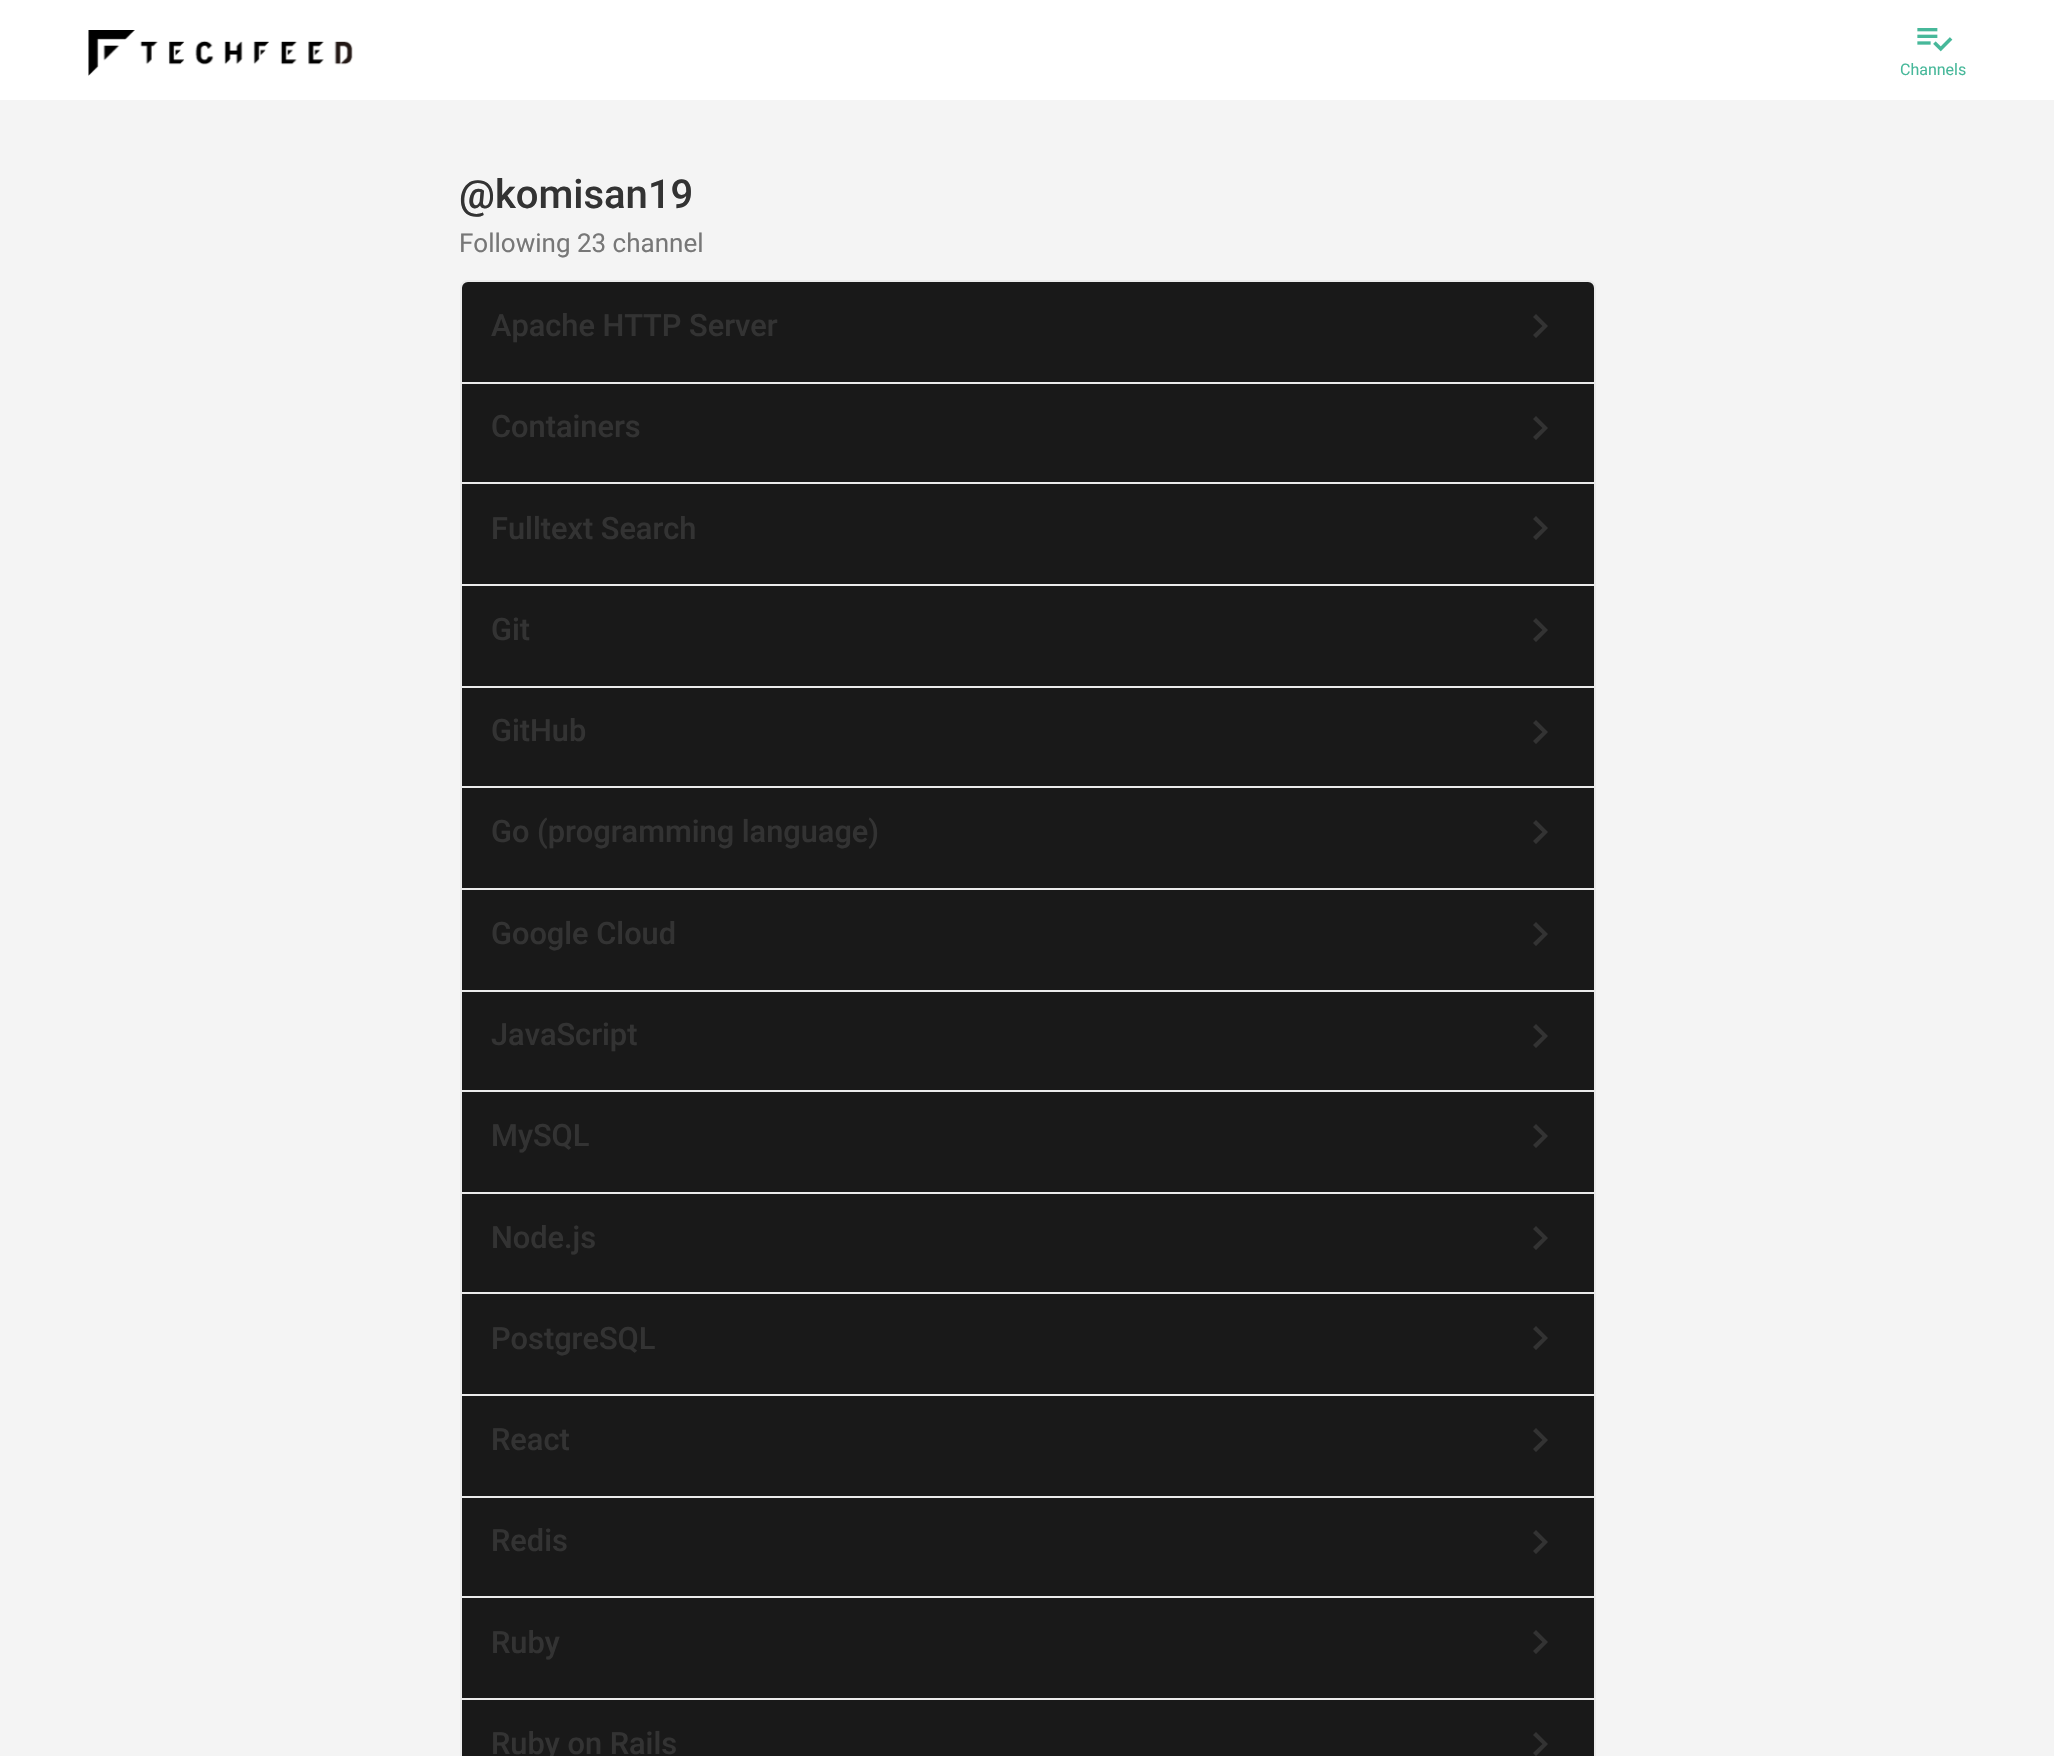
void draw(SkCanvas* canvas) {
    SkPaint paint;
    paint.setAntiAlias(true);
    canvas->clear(0xFFF4F4F4);
    paint.setColor(0xFFFFFFFF);
    canvas->drawRect(SkRect::MakeXYWH(0, 0, 2054, 100), paint);
    canvas->drawImageRect(SkImages::DeferredFromEncodedData(SkData::MakeFromFileName("img1.png")), SkRect::MakeXYWH(88, 30, 265, 46), SkSamplingOptions());
    canvas->drawImageRect(SkImages::DeferredFromEncodedData(SkData::MakeFromFileName("img2.png")), SkRect::MakeXYWH(1917, 28, 36, 24), SkSamplingOptions());
    SkFont font1(fontMgr->matchFamilyStyle("Roboto", SkFontStyle::Normal()), 16);
    font1.setSubpixel(true);
    paint.setColor(0xFF47B89A);
    canvas->drawString("Channels", 1900, 75, font1, paint);
    SkFont font2(fontMgr->matchFamilyStyle("Roboto", SkFontStyle(500, SkFontStyle::kNormal_Width, SkFontStyle::kUpright_Slant)), 40);
    font2.setSubpixel(true);
    paint.setColor(0xFF333333);
    canvas->drawString("@komisan19", 459, 208, font2, paint);
    SkFont font3(fontMgr->matchFamilyStyle("Roboto", SkFontStyle::Normal()), 26);
    font3.setSubpixel(true);
    paint.setColor(0xFF777777);
    canvas->drawString("Following 23 channel", 459, 252, font3, paint);
    paint.setColor(0xFF191919);
    canvas->drawPath(SkPathBuilder().moveTo(468, 281).lineTo(1588, 281).cubicTo(1592, 281, 1595, 284, 1595, 288).lineTo(1595, 383).lineTo(461, 383).lineTo(461, 288).cubicTo(461, 284, 464, 281, 468, 281).close().detach(), paint);
    paint.setStyle(SkPaint::kStroke_Style);
    paint.setStrokeWidth(2);
    paint.setColor(0xFFEBEBEB);
    canvas->drawPath(SkPathBuilder().moveTo(468, 281).lineTo(1588, 281).cubicTo(1592, 281, 1595, 284, 1595, 288).lineTo(1595, 383).lineTo(461, 383).lineTo(461, 288).cubicTo(461, 284, 464, 281, 468, 281).close().detach(), paint);
    SkFont font4(fontMgr->matchFamilyStyle("Roboto", SkFontStyle(500, SkFontStyle::kNormal_Width, SkFontStyle::kUpright_Slant)), 30.75f);
    font4.setSubpixel(true);
    paint.setStyle(SkPaint::kFill_Style);
    paint.setColor(0xFF333333);
    canvas->drawString("Apache HTTP Server", 491, 336, font4, paint);
    canvas->drawPath(SkPathBuilder().moveTo(1533, 335).lineTo(1542.5f, 326).lineTo(1533, 317).lineTo(1536, 314).lineTo(1548, 326).lineTo(1536, 338).close().detach(), paint);
    paint.setColor(0xFF191919);
    canvas->drawRect(SkRect::MakeXYWH(461, 383, 1134, 100), paint);
    paint.setStyle(SkPaint::kStroke_Style);
    paint.setColor(0xFFEBEBEB);
    canvas->drawRect(SkRect::MakeXYWH(461, 383, 1134, 100), paint);
    paint.setStyle(SkPaint::kFill_Style);
    paint.setColor(0xFF333333);
    canvas->drawString("Containers", 491, 437, font4, paint);
    canvas->drawPath(SkPathBuilder().moveTo(1533, 437).lineTo(1542.5f, 428).lineTo(1533, 419).lineTo(1536, 416).lineTo(1548, 428).lineTo(1536, 440).close().detach(), paint);
    paint.setColor(0xFF191919);
    canvas->drawRect(SkRect::MakeXYWH(461, 483, 1134, 102), paint);
    paint.setStyle(SkPaint::kStroke_Style);
    paint.setColor(0xFFEBEBEB);
    canvas->drawRect(SkRect::MakeXYWH(461, 483, 1134, 102), paint);
    paint.setStyle(SkPaint::kFill_Style);
    paint.setColor(0xFF333333);
    canvas->drawString("Fulltext Search", 491, 539, font4, paint);
    canvas->drawPath(SkPathBuilder().moveTo(1533, 537).lineTo(1542.5f, 528).lineTo(1533, 519).lineTo(1536, 516).lineTo(1548, 528).lineTo(1536, 540).close().detach(), paint);
    paint.setColor(0xFF191919);
    canvas->drawRect(SkRect::MakeXYWH(461, 585, 1134, 102), paint);
    paint.setStyle(SkPaint::kStroke_Style);
    paint.setColor(0xFFEBEBEB);
    canvas->drawRect(SkRect::MakeXYWH(461, 585, 1134, 102), paint);
    paint.setStyle(SkPaint::kFill_Style);
    paint.setColor(0xFF333333);
    canvas->drawString("Git", 491, 640, font4, paint);
    canvas->drawPath(SkPathBuilder().moveTo(1533, 639).lineTo(1542.5f, 630).lineTo(1533, 621).lineTo(1536, 618).lineTo(1548, 630).lineTo(1536, 642).close().detach(), paint);
    paint.setColor(0xFF191919);
    canvas->drawRect(SkRect::MakeXYWH(461, 687, 1134, 100), paint);
    paint.setStyle(SkPaint::kStroke_Style);
    paint.setColor(0xFFEBEBEB);
    canvas->drawRect(SkRect::MakeXYWH(461, 687, 1134, 100), paint);
    paint.setStyle(SkPaint::kFill_Style);
    paint.setColor(0xFF333333);
    canvas->drawString("GitHub", 491, 741, font4, paint);
    canvas->drawPath(SkPathBuilder().moveTo(1533, 741).lineTo(1542.5f, 732).lineTo(1533, 723).lineTo(1536, 720).lineTo(1548, 732).lineTo(1536, 744).close().detach(), paint);
    paint.setColor(0xFF191919);
    canvas->drawRect(SkRect::MakeXYWH(461, 787, 1134, 102), paint);
    paint.setStyle(SkPaint::kStroke_Style);
    paint.setColor(0xFFEBEBEB);
    canvas->drawRect(SkRect::MakeXYWH(461, 787, 1134, 102), paint);
    paint.setStyle(SkPaint::kFill_Style);
    paint.setColor(0xFF333333);
    canvas->drawString("Go (programming language)", 491, 842, font4, paint);
    canvas->drawPath(SkPathBuilder().moveTo(1533, 841).lineTo(1542.5f, 832).lineTo(1533, 823).lineTo(1536, 820).lineTo(1548, 832).lineTo(1536, 844).close().detach(), paint);
    paint.setColor(0xFF191919);
    canvas->drawRect(SkRect::MakeXYWH(461, 889, 1134, 102), paint);
    paint.setStyle(SkPaint::kStroke_Style);
    paint.setColor(0xFFEBEBEB);
    canvas->drawRect(SkRect::MakeXYWH(461, 889, 1134, 102), paint);
    paint.setStyle(SkPaint::kFill_Style);
    paint.setColor(0xFF333333);
    canvas->drawString("Google Cloud", 491, 944, font4, paint);
    canvas->drawPath(SkPathBuilder().moveTo(1533, 943).lineTo(1542.5f, 934).lineTo(1533, 925).lineTo(1536, 922).lineTo(1548, 934).lineTo(1536, 946).close().detach(), paint);
    paint.setColor(0xFF191919);
    canvas->drawRect(SkRect::MakeXYWH(461, 991, 1134, 100), paint);
    paint.setStyle(SkPaint::kStroke_Style);
    paint.setColor(0xFFEBEBEB);
    canvas->drawRect(SkRect::MakeXYWH(461, 991, 1134, 100), paint);
    paint.setStyle(SkPaint::kFill_Style);
    paint.setColor(0xFF333333);
    canvas->drawString("JavaScript", 491, 1045, font4, paint);
    canvas->drawPath(SkPathBuilder().moveTo(1533, 1045).lineTo(1542.5f, 1036).lineTo(1533, 1027).lineTo(1536, 1024).lineTo(1548, 1036).lineTo(1536, 1048).close().detach(), paint);
    paint.setColor(0xFF191919);
    canvas->drawRect(SkRect::MakeXYWH(461, 1091, 1134, 102), paint);
    paint.setStyle(SkPaint::kStroke_Style);
    paint.setColor(0xFFEBEBEB);
    canvas->drawRect(SkRect::MakeXYWH(461, 1091, 1134, 102), paint);
    paint.setStyle(SkPaint::kFill_Style);
    paint.setColor(0xFF333333);
    canvas->drawString("MySQL", 491, 1146, font4, paint);
    canvas->drawPath(SkPathBuilder().moveTo(1533, 1145).lineTo(1542.5f, 1136).lineTo(1533, 1127).lineTo(1536, 1124).lineTo(1548, 1136).lineTo(1536, 1148).close().detach(), paint);
    paint.setColor(0xFF191919);
    canvas->drawRect(SkRect::MakeXYWH(461, 1193, 1134, 100), paint);
    paint.setStyle(SkPaint::kStroke_Style);
    paint.setColor(0xFFEBEBEB);
    canvas->drawRect(SkRect::MakeXYWH(461, 1193, 1134, 100), paint);
    paint.setStyle(SkPaint::kFill_Style);
    paint.setColor(0xFF333333);
    canvas->drawString("Node.js", 491, 1248, font4, paint);
    canvas->drawPath(SkPathBuilder().moveTo(1533, 1247).lineTo(1542.5f, 1238).lineTo(1533, 1229).lineTo(1536, 1226).lineTo(1548, 1238).lineTo(1536, 1250).close().detach(), paint);
    paint.setColor(0xFF191919);
    canvas->drawRect(SkRect::MakeXYWH(461, 1293, 1134, 102), paint);
    paint.setStyle(SkPaint::kStroke_Style);
    paint.setColor(0xFFEBEBEB);
    canvas->drawRect(SkRect::MakeXYWH(461, 1293, 1134, 102), paint);
    paint.setStyle(SkPaint::kFill_Style);
    paint.setColor(0xFF333333);
    canvas->drawString("PostgreSQL", 491, 1349, font4, paint);
    canvas->drawPath(SkPathBuilder().moveTo(1533, 1347).lineTo(1542.5f, 1338).lineTo(1533, 1329).lineTo(1536, 1326).lineTo(1548, 1338).lineTo(1536, 1350).close().detach(), paint);
    paint.setColor(0xFF191919);
    canvas->drawRect(SkRect::MakeXYWH(461, 1395, 1134, 102), paint);
    paint.setStyle(SkPaint::kStroke_Style);
    paint.setColor(0xFFEBEBEB);
    canvas->drawRect(SkRect::MakeXYWH(461, 1395, 1134, 102), paint);
    paint.setStyle(SkPaint::kFill_Style);
    paint.setColor(0xFF333333);
    canvas->drawString("React", 491, 1450, font4, paint);
    canvas->drawPath(SkPathBuilder().moveTo(1533, 1449).lineTo(1542.5f, 1440).lineTo(1533, 1431).lineTo(1536, 1428).lineTo(1548, 1440).lineTo(1536, 1452).close().detach(), paint);
    paint.setColor(0xFF191919);
    canvas->drawRect(SkRect::MakeXYWH(461, 1497, 1134, 100), paint);
    paint.setStyle(SkPaint::kStroke_Style);
    paint.setColor(0xFFEBEBEB);
    canvas->drawRect(SkRect::MakeXYWH(461, 1497, 1134, 100), paint);
    paint.setStyle(SkPaint::kFill_Style);
    paint.setColor(0xFF333333);
    canvas->drawString("Redis", 491, 1551, font4, paint);
    canvas->drawPath(SkPathBuilder().moveTo(1533, 1551).lineTo(1542.5f, 1542).lineTo(1533, 1533).lineTo(1536, 1530).lineTo(1548, 1542).lineTo(1536, 1554).close().detach(), paint);
    paint.setColor(0xFF191919);
    canvas->drawRect(SkRect::MakeXYWH(461, 1597, 1134, 102), paint);
    paint.setStyle(SkPaint::kStroke_Style);
    paint.setColor(0xFFEBEBEB);
    canvas->drawRect(SkRect::MakeXYWH(461, 1597, 1134, 102), paint);
    paint.setStyle(SkPaint::kFill_Style);
    paint.setColor(0xFF333333);
    canvas->drawString("Ruby", 491, 1653, font4, paint);
    canvas->drawPath(SkPathBuilder().moveTo(1533, 1651).lineTo(1542.5f, 1642).lineTo(1533, 1633).lineTo(1536, 1630).lineTo(1548, 1642).lineTo(1536, 1654).close().detach(), paint);
    paint.setColor(0xFF191919);
    canvas->drawRect(SkRect::MakeXYWH(461, 1699, 1134, 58), paint);
    paint.setStyle(SkPaint::kStroke_Style);
    paint.setColor(0xFFEBEBEB);
    canvas->drawRect(SkRect::MakeXYWH(461, 1699, 1134, 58), paint);
    paint.setStyle(SkPaint::kFill_Style);
    paint.setColor(0xFF333333);
    canvas->drawString("Ruby on Rails", 491, 1754, font4, paint);
    canvas->drawPath(SkPathBuilder().moveTo(1533, 1753).lineTo(1542.5f, 1744).lineTo(1533, 1735).lineTo(1536, 1732).lineTo(1548, 1744).lineTo(1536, 1756).close().detach(), paint);
}
